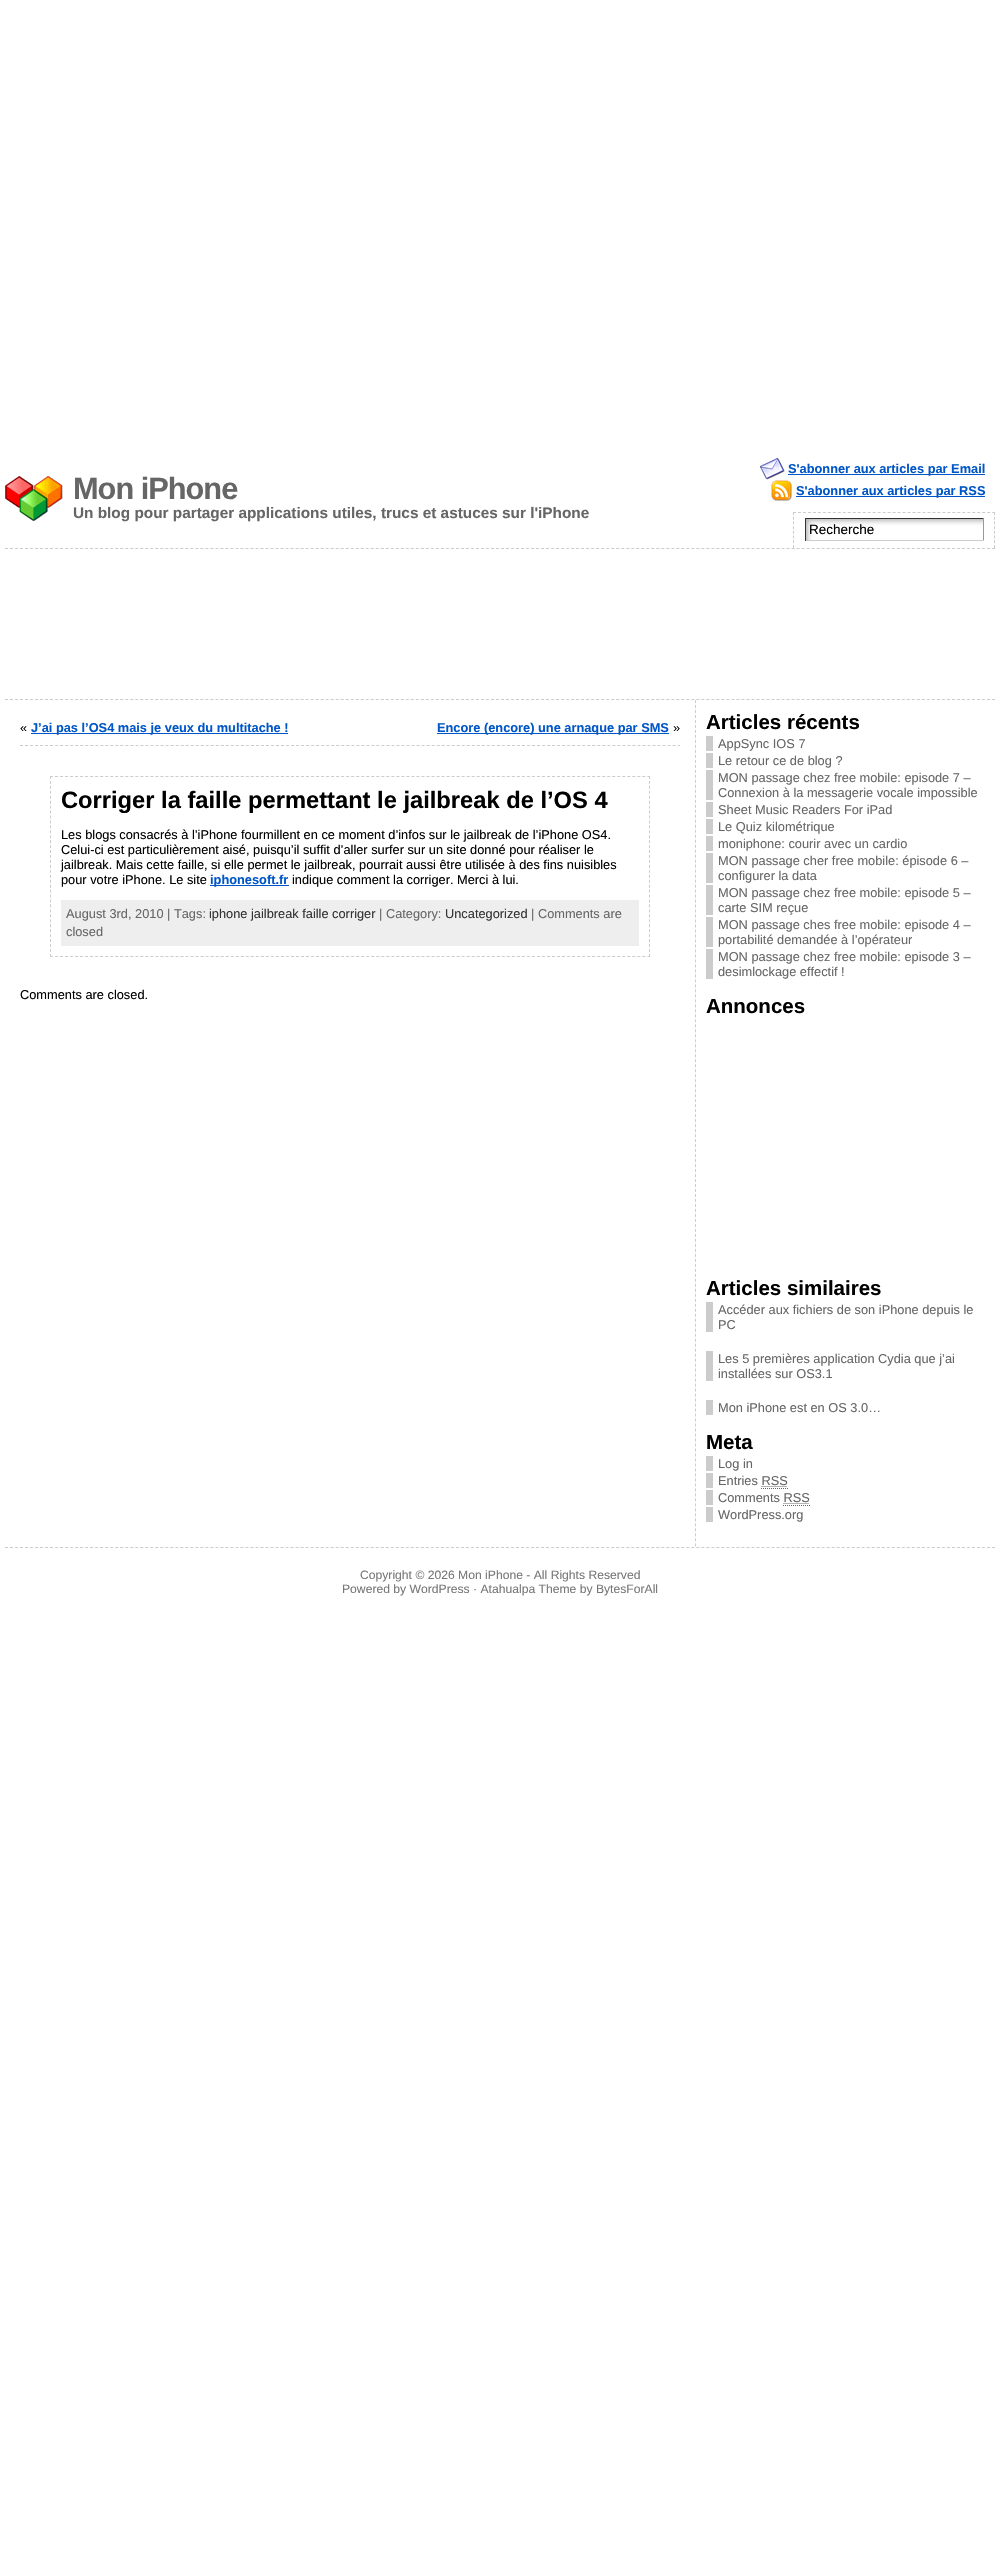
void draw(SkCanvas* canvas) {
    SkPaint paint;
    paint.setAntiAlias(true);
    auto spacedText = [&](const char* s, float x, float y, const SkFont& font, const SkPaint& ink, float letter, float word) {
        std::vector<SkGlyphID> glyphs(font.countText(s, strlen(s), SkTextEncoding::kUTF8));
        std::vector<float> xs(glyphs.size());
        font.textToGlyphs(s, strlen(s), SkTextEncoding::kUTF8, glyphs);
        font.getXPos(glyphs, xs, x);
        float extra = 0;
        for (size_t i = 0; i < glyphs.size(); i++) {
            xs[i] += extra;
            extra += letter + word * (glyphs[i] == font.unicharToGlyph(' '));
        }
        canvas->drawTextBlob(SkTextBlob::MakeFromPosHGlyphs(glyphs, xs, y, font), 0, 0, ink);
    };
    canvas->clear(0xFFFFFFFF);
    canvas->drawImageRect(SkImages::DeferredFromEncodedData(SkData::MakeFromFileName("img1.png")), SkRect::MakeXYWH(5, 476, 58, 45), SkSamplingOptions());
    SkFont font1(fontMgr->matchFamilyStyle("Liberation Sans", SkFontStyle::Bold()), 30.75f);
    font1.setSubpixel(true);
    paint.setColor(0xFF666666);
    spacedText("Mon iPhone", 73, 499, font1, paint, -1, 0);
    SkFont font2(fontMgr->matchFamilyStyle("Liberation Sans", SkFontStyle::Bold()), 15.35f);
    font2.setSubpixel(true);
    canvas->drawString("Un blog pour partager applications utiles, trucs et astuces sur l'iPhone", 73, 518, font2, paint);
    canvas->drawImageRect(SkImages::DeferredFromEncodedData(SkData::MakeFromFileName("img2.png")), SkRect::MakeXYWH(760, 458, 25, 22), SkSamplingOptions());
    paint.setColor(0xFF0056C7);
    canvas->drawRect(SkRect::MakeXYWH(788, 474, 197, 1), paint);
    SkFont font3(fontMgr->matchFamilyStyle("Liberation Sans", SkFontStyle::Bold()), 12.8f);
    font3.setSubpixel(true);
    canvas->drawString("S'abonner aux articles par Email", 788, 473, font3, paint);
    canvas->drawImageRect(SkImages::DeferredFromEncodedData(SkData::MakeFromFileName("img3.png")), SkRect::MakeXYWH(771, 480, 21, 21), SkSamplingOptions());
    canvas->drawRect(SkRect::MakeXYWH(796, 496, 189, 1), paint);
    canvas->drawString("S'abonner aux articles par RSS", 796, 495, font3, paint);
    paint.setStyle(SkPaint::kStroke_Style);
    paint.setStrokeWidth(1);
    paint.setColor(0xFFCCCCCC);
    paint.setPathEffect(SkDashPathEffect::Make({{3, 1.98f}}, 0));
    canvas->drawPath(SkPathBuilder().moveTo(793, 512.5f).lineTo(995, 512.5f).detach(), paint);
    paint.setPathEffect(nullptr);
    paint.setPathEffect(SkDashPathEffect::Make({{3, 1.71f}}, 0));
    canvas->drawPath(SkPathBuilder().moveTo(994.5f, 512).lineTo(994.5f, 548).detach(), paint);
    paint.setPathEffect(nullptr);
    paint.setPathEffect(SkDashPathEffect::Make({{3, 1.71f}}, 0));
    canvas->drawPath(SkPathBuilder().moveTo(793.5f, 512).lineTo(793.5f, 548).detach(), paint);
    paint.setPathEffect(nullptr);
    canvas->drawImageRect(SkImages::DeferredFromEncodedData(SkData::MakeFromFileName("img4.png")), SkRect::MakeXYWH(806, 519, 177, 21), SkSamplingOptions());
    paint.setStyle(SkPaint::kFill_Style);
    paint.setColor(0xFF333333);
    canvas->drawRect(SkRect::MakeXYWH(805, 518, 179, 1), paint);
    paint.setColor(0xFF999999);
    canvas->drawRect(SkRect::MakeXYWH(983, 518, 1, 23), paint);
    paint.setColor(0xFFCCCCCC);
    canvas->drawRect(SkRect::MakeXYWH(805, 540, 179, 1), paint);
    paint.setColor(0xFF333333);
    canvas->drawRect(SkRect::MakeXYWH(805, 518, 1, 23), paint);
    SkFont font4(fontMgr->matchFamilyStyle("Liberation Sans", SkFontStyle::Normal()), 13.5f);
    font4.setSubpixel(true);
    paint.setColor(0xFF000000);
    canvas->drawString("Recherche", 809, 534, font4, paint);
    paint.setStyle(SkPaint::kStroke_Style);
    paint.setColor(0xFFCCCCCC);
    paint.setPathEffect(SkDashPathEffect::Make({{3, 2.01f}}, 0));
    canvas->drawPath(SkPathBuilder().moveTo(5, 548.5f).lineTo(995, 548.5f).detach(), paint);
    paint.setPathEffect(nullptr);
    paint.setPathEffect(SkDashPathEffect::Make({{3, 2.01f}}, 0));
    canvas->drawPath(SkPathBuilder().moveTo(5, 699.5f).lineTo(995, 699.5f).detach(), paint);
    paint.setPathEffect(nullptr);
    paint.setPathEffect(SkDashPathEffect::Make({{3, 2.02f}}, 0));
    canvas->drawPath(SkPathBuilder().moveTo(20, 745.5f).lineTo(680, 745.5f).detach(), paint);
    paint.setPathEffect(nullptr);
    SkFont font5(fontMgr->matchFamilyStyle("Liberation Sans", SkFontStyle::Normal()), 12.8f);
    font5.setSubpixel(true);
    paint.setStyle(SkPaint::kFill_Style);
    paint.setColor(0xFF000000);
    canvas->drawString("«", 20, 732, font5, paint);
    paint.setColor(0xFF0056C7);
    canvas->drawRect(SkRect::MakeXYWH(31, 733, 257, 1), paint);
    canvas->drawString("J’ai pas l’OS4 mais je veux du multitache !", 31, 732, font3, paint);
    canvas->drawRect(SkRect::MakeXYWH(437, 733, 232, 1), paint);
    canvas->drawString("Encore (encore) une arnaque par SMS", 437, 732, font3, paint);
    paint.setColor(0xFF000000);
    canvas->drawString("»", 673, 732, font5, paint);
    paint.setStyle(SkPaint::kStroke_Style);
    paint.setColor(0xFFCCCCCC);
    paint.setPathEffect(SkDashPathEffect::Make({{3, 2.02f}}, 0));
    canvas->drawPath(SkPathBuilder().moveTo(50, 776.5f).lineTo(650, 776.5f).detach(), paint);
    paint.setPathEffect(nullptr);
    paint.setPathEffect(SkDashPathEffect::Make({{3, 1.94f}}, 0));
    canvas->drawPath(SkPathBuilder().moveTo(649.5f, 776).lineTo(649.5f, 957).detach(), paint);
    paint.setPathEffect(nullptr);
    paint.setPathEffect(SkDashPathEffect::Make({{3, 2.02f}}, 0));
    canvas->drawPath(SkPathBuilder().moveTo(50, 956.5f).lineTo(650, 956.5f).detach(), paint);
    paint.setPathEffect(nullptr);
    paint.setPathEffect(SkDashPathEffect::Make({{3, 1.94f}}, 0));
    canvas->drawPath(SkPathBuilder().moveTo(50.5f, 776).lineTo(50.5f, 957).detach(), paint);
    paint.setPathEffect(nullptr);
    SkFont font6(fontMgr->matchFamilyStyle("Liberation Sans", SkFontStyle::Bold()), 23.7f);
    font6.setSubpixel(true);
    paint.setStyle(SkPaint::kFill_Style);
    paint.setColor(0xFF000000);
    canvas->drawString("Corriger la faille permettant le jailbreak de l’OS 4", 61, 808, font6, paint);
    canvas->drawString("Les blogs consacrés à l’iPhone fourmillent en ce moment d’infos sur le jailbreak de l’iPhone OS4.", 61, 839, font5, paint);
    canvas->drawString("Celui-ci est particulièrement aisé, puisqu’il suffit d’aller surfer sur un site donné pour réaliser le", 61, 854, font5, paint);
    canvas->drawString("jailbreak. Mais cette faille, si elle permet le jailbreak, pourrait aussi être utilisée à des fins nuisibles", 61, 869, font5, paint);
    canvas->drawString("pour votre iPhone. Le site", 61, 884, font5, paint);
    paint.setColor(0xFF0056C7);
    canvas->drawRect(SkRect::MakeXYWH(210, 885, 79, 1), paint);
    canvas->drawString("iphonesoft.fr", 210, 884, font3, paint);
    paint.setColor(0xFF000000);
    canvas->drawString("indique comment la corriger. Merci à lui.", 292, 884, font5, paint);
    paint.setColor(0xFFEEEEEE);
    canvas->drawRect(SkRect::MakeXYWH(61, 900, 578, 46), paint);
    paint.setColor(0xFF666666);
    canvas->drawString("August 3rd, 2010 | Tags:", 66, 918, font5, paint);
    paint.setColor(0xFF333333);
    canvas->drawString("iphone jailbreak faille corriger", 209, 918, font5, paint);
    paint.setColor(0xFF666666);
    canvas->drawString("| Category:", 379, 918, font5, paint);
    paint.setColor(0xFF333333);
    canvas->drawString("Uncategorized", 445, 918, font5, paint);
    paint.setColor(0xFF666666);
    canvas->drawString("| Comments are", 531, 918, font5, paint);
    canvas->drawString("closed", 66, 936, font5, paint);
    paint.setColor(0xFF000000);
    canvas->drawString("Comments are closed.", 20, 999, font5, paint);
    paint.setStyle(SkPaint::kStroke_Style);
    paint.setColor(0xFFCCCCCC);
    paint.setPathEffect(SkDashPathEffect::Make({{3, 1.99f}}, 0));
    canvas->drawPath(SkPathBuilder().moveTo(695.5f, 700).lineTo(695.5f, 1547).detach(), paint);
    paint.setPathEffect(nullptr);
    SkFont font7(fontMgr->matchFamilyStyle("Liberation Sans", SkFontStyle::Bold()), 20.5f);
    font7.setSubpixel(true);
    paint.setStyle(SkPaint::kFill_Style);
    paint.setColor(0xFF000000);
    canvas->drawString("Articles récents", 706, 729, font7, paint);
    paint.setColor(0xFFCCCCCC);
    canvas->drawRect(SkRect::MakeXYWH(706, 736, 7, 15), paint);
    paint.setColor(0xFF666666);
    canvas->drawString("AppSync IOS 7", 718, 748, font5, paint);
    paint.setColor(0xFFCCCCCC);
    canvas->drawRect(SkRect::MakeXYWH(706, 753, 7, 15), paint);
    paint.setColor(0xFF666666);
    canvas->drawString("Le retour ce de blog ?", 718, 765, font5, paint);
    paint.setColor(0xFFCCCCCC);
    canvas->drawRect(SkRect::MakeXYWH(706, 770, 7, 30), paint);
    paint.setColor(0xFF666666);
    canvas->drawString("MON passage chez free mobile: episode 7 –", 718, 782, font5, paint);
    canvas->drawString("Connexion à la messagerie vocale impossible", 718, 797, font5, paint);
    paint.setColor(0xFFCCCCCC);
    canvas->drawRect(SkRect::MakeXYWH(706, 802, 7, 15), paint);
    paint.setColor(0xFF666666);
    canvas->drawString("Sheet Music Readers For iPad", 718, 814, font5, paint);
    paint.setColor(0xFFCCCCCC);
    canvas->drawRect(SkRect::MakeXYWH(706, 819, 7, 15), paint);
    paint.setColor(0xFF666666);
    canvas->drawString("Le Quiz kilométrique", 718, 831, font5, paint);
    paint.setColor(0xFFCCCCCC);
    canvas->drawRect(SkRect::MakeXYWH(706, 836, 7, 15), paint);
    paint.setColor(0xFF666666);
    canvas->drawString("moniphone: courir avec un cardio", 718, 848, font5, paint);
    paint.setColor(0xFFCCCCCC);
    canvas->drawRect(SkRect::MakeXYWH(706, 853, 7, 30), paint);
    paint.setColor(0xFF666666);
    canvas->drawString("MON passage cher free mobile: épisode 6 –", 718, 865, font5, paint);
    canvas->drawString("configurer la data", 718, 880, font5, paint);
    paint.setColor(0xFFCCCCCC);
    canvas->drawRect(SkRect::MakeXYWH(706, 885, 7, 30), paint);
    paint.setColor(0xFF666666);
    canvas->drawString("MON passage chez free mobile: episode 5 –", 718, 897, font5, paint);
    canvas->drawString("carte SIM reçue", 718, 912, font5, paint);
    paint.setColor(0xFFCCCCCC);
    canvas->drawRect(SkRect::MakeXYWH(706, 917, 7, 30), paint);
    paint.setColor(0xFF666666);
    canvas->drawString("MON passage ches free mobile: episode 4 –", 718, 929, font5, paint);
    canvas->drawString("portabilité demandée à l’opérateur", 718, 944, font5, paint);
    paint.setColor(0xFFCCCCCC);
    canvas->drawRect(SkRect::MakeXYWH(706, 949, 7, 30), paint);
    paint.setColor(0xFF666666);
    canvas->drawString("MON passage chez free mobile: episode 3 –", 718, 961, font5, paint);
    canvas->drawString("desimlockage effectif !", 718, 976, font5, paint);
    paint.setColor(0xFF000000);
    canvas->drawString("Annonces", 706, 1013, font7, paint);
    canvas->drawString("Articles similaires", 706, 1295, font7, paint);
    paint.setColor(0xFFCCCCCC);
    canvas->drawRect(SkRect::MakeXYWH(706, 1302, 7, 30), paint);
    paint.setColor(0xFF666666);
    canvas->drawString("Accéder aux fichiers de son iPhone depuis le", 718, 1314, font5, paint);
    canvas->drawString("PC", 718, 1329, font5, paint);
    paint.setColor(0xFFCCCCCC);
    canvas->drawRect(SkRect::MakeXYWH(706, 1351, 7, 30), paint);
    paint.setColor(0xFF666666);
    canvas->drawString("Les 5 premières application Cydia que j’ai", 718, 1363, font5, paint);
    canvas->drawString("installées sur OS3.1", 718, 1378, font5, paint);
    paint.setColor(0xFFCCCCCC);
    canvas->drawRect(SkRect::MakeXYWH(706, 1400, 7, 15), paint);
    paint.setColor(0xFF666666);
    canvas->drawString("Mon iPhone est en OS 3.0…", 718, 1412, font5, paint);
    paint.setColor(0xFF000000);
    canvas->drawString("Meta", 706, 1449, font7, paint);
    paint.setColor(0xFFCCCCCC);
    canvas->drawRect(SkRect::MakeXYWH(706, 1456, 7, 15), paint);
    paint.setColor(0xFF666666);
    canvas->drawString("Log in", 718, 1468, font5, paint);
    paint.setColor(0xFFCCCCCC);
    canvas->drawRect(SkRect::MakeXYWH(706, 1473, 7, 15), paint);
    paint.setColor(0xFF666666);
    canvas->drawString("Entries RSS", 718, 1485, font5, paint);
    paint.setStyle(SkPaint::kStroke_Style);
    paint.setPathEffect(SkDashPathEffect::Make({{1, 1}}, 0));
    canvas->drawPath(SkPathBuilder().moveTo(761, 1488.5f).lineTo(788, 1488.5f).moveTo(761.5f, 1486.5f).lineTo(787.5f, 1486.5f).detach(), paint);
    paint.setPathEffect(nullptr);
    paint.setStyle(SkPaint::kFill_Style);
    paint.setColor(0xFFCCCCCC);
    canvas->drawRect(SkRect::MakeXYWH(706, 1490, 7, 15), paint);
    paint.setColor(0xFF666666);
    canvas->drawString("Comments RSS", 718, 1502, font5, paint);
    paint.setStyle(SkPaint::kStroke_Style);
    paint.setPathEffect(SkDashPathEffect::Make({{1, 1}}, 0));
    canvas->drawPath(SkPathBuilder().moveTo(783, 1505.5f).lineTo(810, 1505.5f).moveTo(783.5f, 1503.5f).lineTo(809.5f, 1503.5f).detach(), paint);
    paint.setPathEffect(nullptr);
    paint.setStyle(SkPaint::kFill_Style);
    paint.setColor(0xFFCCCCCC);
    canvas->drawRect(SkRect::MakeXYWH(706, 1507, 7, 15), paint);
    paint.setColor(0xFF666666);
    canvas->drawString("WordPress.org", 718, 1519, font5, paint);
    paint.setStyle(SkPaint::kStroke_Style);
    paint.setColor(0xFFCCCCCC);
    paint.setPathEffect(SkDashPathEffect::Make({{3, 2.01f}}, 0));
    canvas->drawPath(SkPathBuilder().moveTo(5, 1547.5f).lineTo(995, 1547.5f).detach(), paint);
    paint.setPathEffect(nullptr);
    SkFont font8(fontMgr->matchFamilyStyle("Liberation Sans", SkFontStyle::Normal()), 12.15f);
    font8.setSubpixel(true);
    paint.setStyle(SkPaint::kFill_Style);
    paint.setColor(0xFF777777);
    canvas->drawString("Copyright © 2026 Mon iPhone - All Rights Reserved", 360, 1579, font8, paint);
    canvas->drawString("Powered by WordPress · Atahualpa Theme by BytesForAll", 342, 1593, font8, paint);
}
